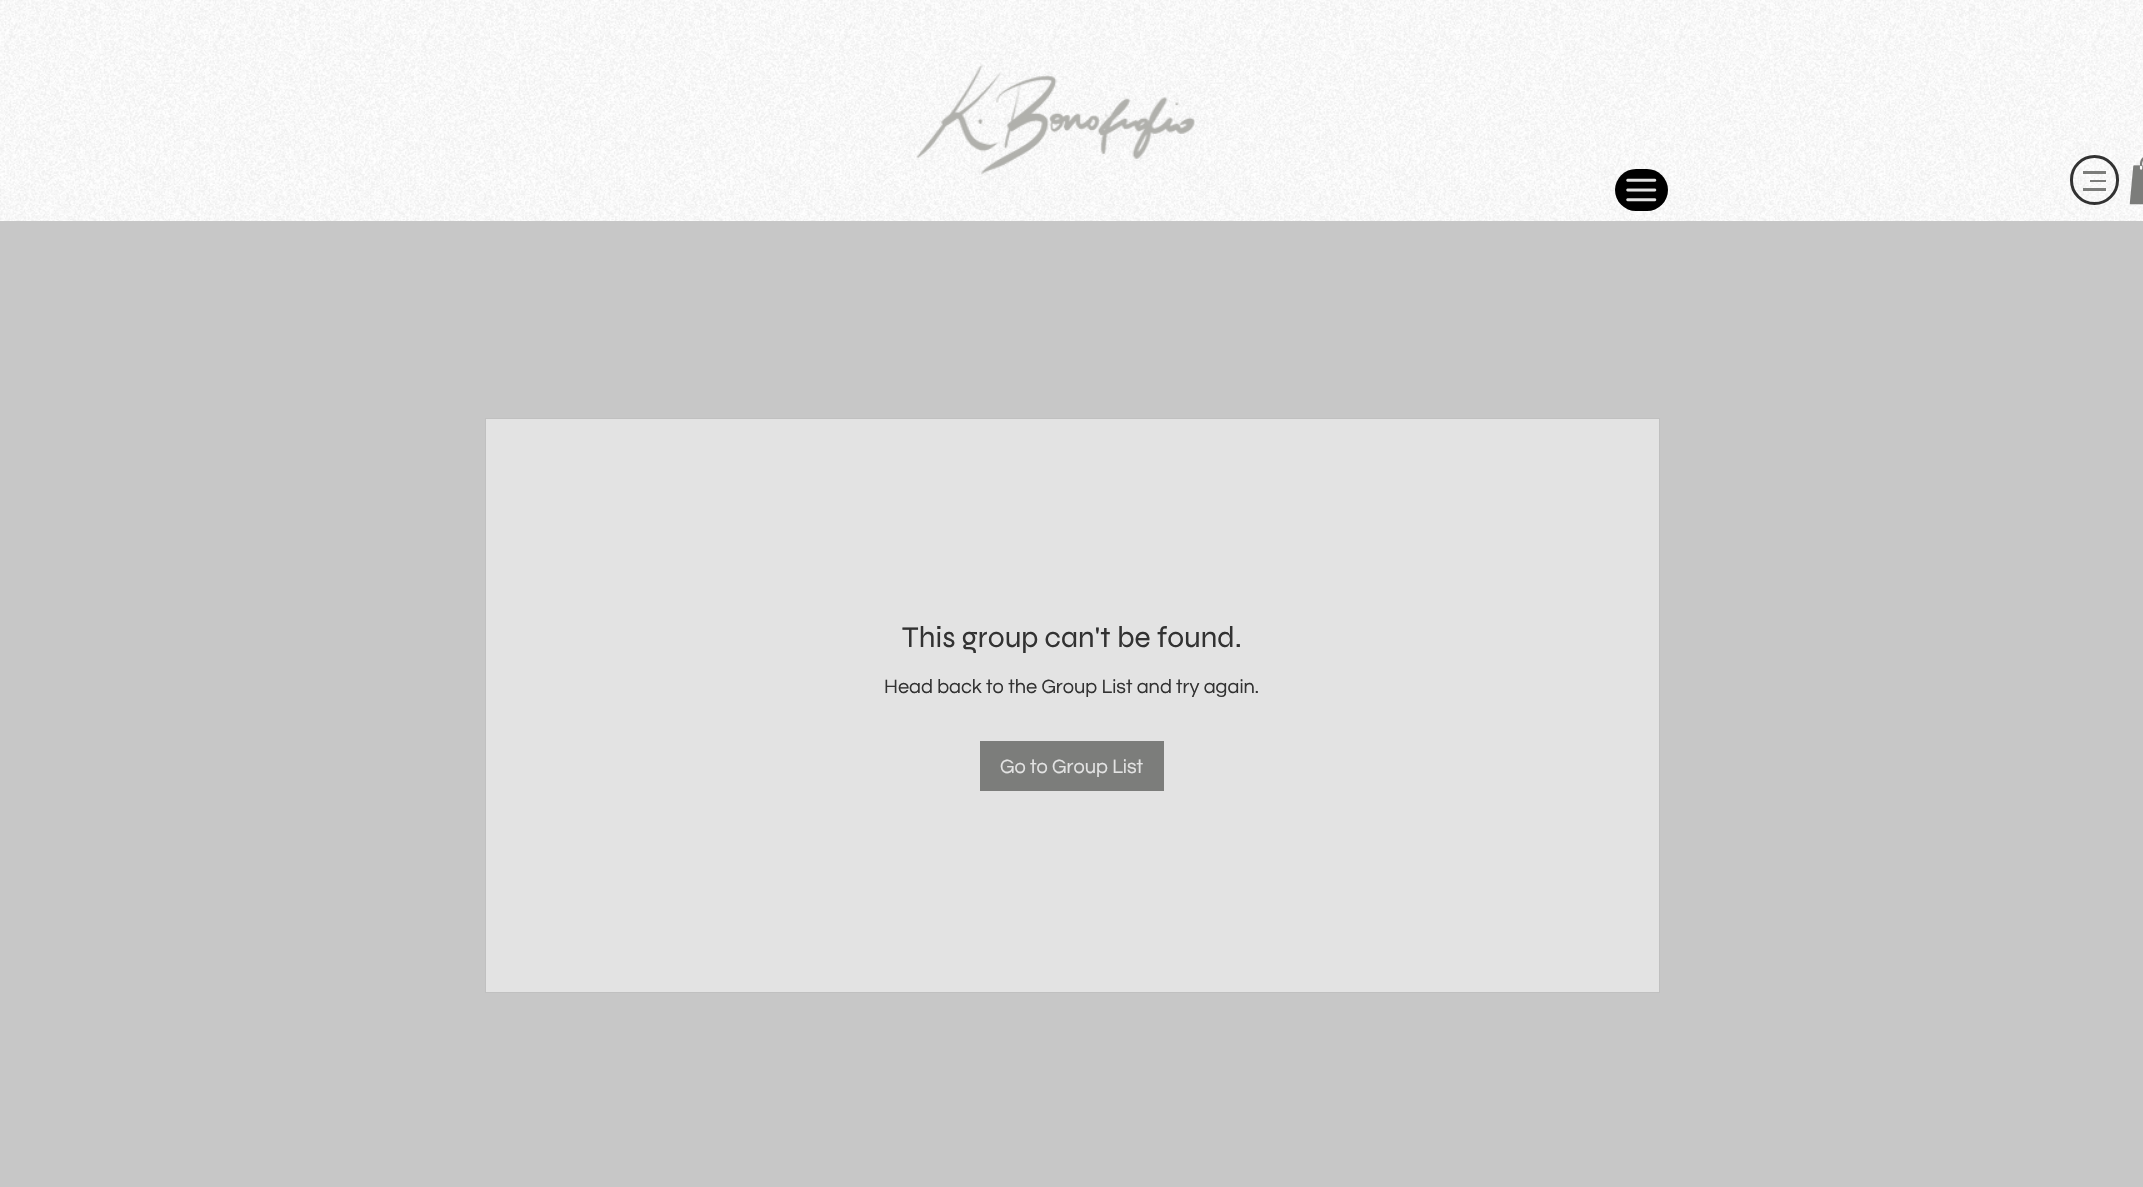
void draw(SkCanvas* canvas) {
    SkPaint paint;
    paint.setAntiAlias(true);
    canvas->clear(0xFFC7C7C7);
    paint.setColor(0xFFFFFFFF);
    canvas->drawRect(SkRect::MakeXYWH(0, 0, 2143, 221), paint);
    canvas->drawImageRect(SkImages::DeferredFromEncodedData(SkData::MakeFromFileName("img1.png")), SkRect::MakeXYWH(0, 0, 2143, 221), SkSamplingOptions());
    canvas->drawImageRect(SkImages::DeferredFromEncodedData(SkData::MakeFromFileName("img2.png")), SkRect::MakeXYWH(916, 65, 279, 110), SkSamplingOptions());
    paint.setColor(0xFF000000);
    canvas->drawRoundRect(SkRect::MakeXYWH(1615, 169, 53, 42), 21, 21, paint);
    canvas->drawImageRect(SkImages::DeferredFromEncodedData(SkData::MakeFromFileName("img3.png")), SkRect::MakeXYWH(1626, 178, 31, 24), SkSamplingOptions());
    paint.setStyle(SkPaint::kStroke_Style);
    paint.setStrokeWidth(3);
    paint.setColor(0xFF323232);
    canvas->drawRoundRect(SkRect::MakeXYWH(2071.5f, 156.5f, 46, 47), 23, 23, paint);
    paint.setStyle(SkPaint::kFill_Style);
    paint.setColor(0xFF7C7D7B);
    canvas->drawRect(SkRect::MakeXYWH(2083, 171, 23, 3), paint);
    canvas->drawRect(SkRect::MakeXYWH(2090, 180, 16, 2), paint);
    canvas->drawRect(SkRect::MakeXYWH(2083, 188, 23, 3), paint);
    canvas->drawImageRect(SkImages::DeferredFromEncodedData(SkData::MakeFromFileName("img4.png")), SkRect::MakeXYWH(2129, 157, 14, 48), SkSamplingOptions());
    paint.setColor(0xFFE3E3E3);
    canvas->drawRect(SkRect::MakeXYWH(485.5f, 418.5f, 1174, 574), paint);
    paint.setStyle(SkPaint::kStroke_Style);
    paint.setStrokeWidth(1);
    paint.setColor(0xFFC0C0C0);
    canvas->drawRect(SkRect::MakeXYWH(485.5f, 418.5f, 1174, 574), paint);
    SkFont font1(fontMgr->matchFamilyStyle("Syne", SkFontStyle::Normal()), 30);
    font1.setSubpixel(true);
    paint.setStyle(SkPaint::kFill_Style);
    paint.setColor(0xFF323232);
    canvas->drawString("This group can't be found.", 902, 647, font1, paint);
    SkFont font2(fontMgr->matchFamilyStyle("Questrial", SkFontStyle::Normal()), 20);
    font2.setSubpixel(true);
    canvas->drawString("Head back to the Group List and try again.", 884, 693, font2, paint);
    paint.setColor(0xFF7C7D7B);
    canvas->drawRect(SkRect::MakeXYWH(980, 741, 184, 50), paint);
    paint.setColor(0xFFE3E3E3);
    canvas->drawString("Go to Group List", 1000, 773, font2, paint);
}
